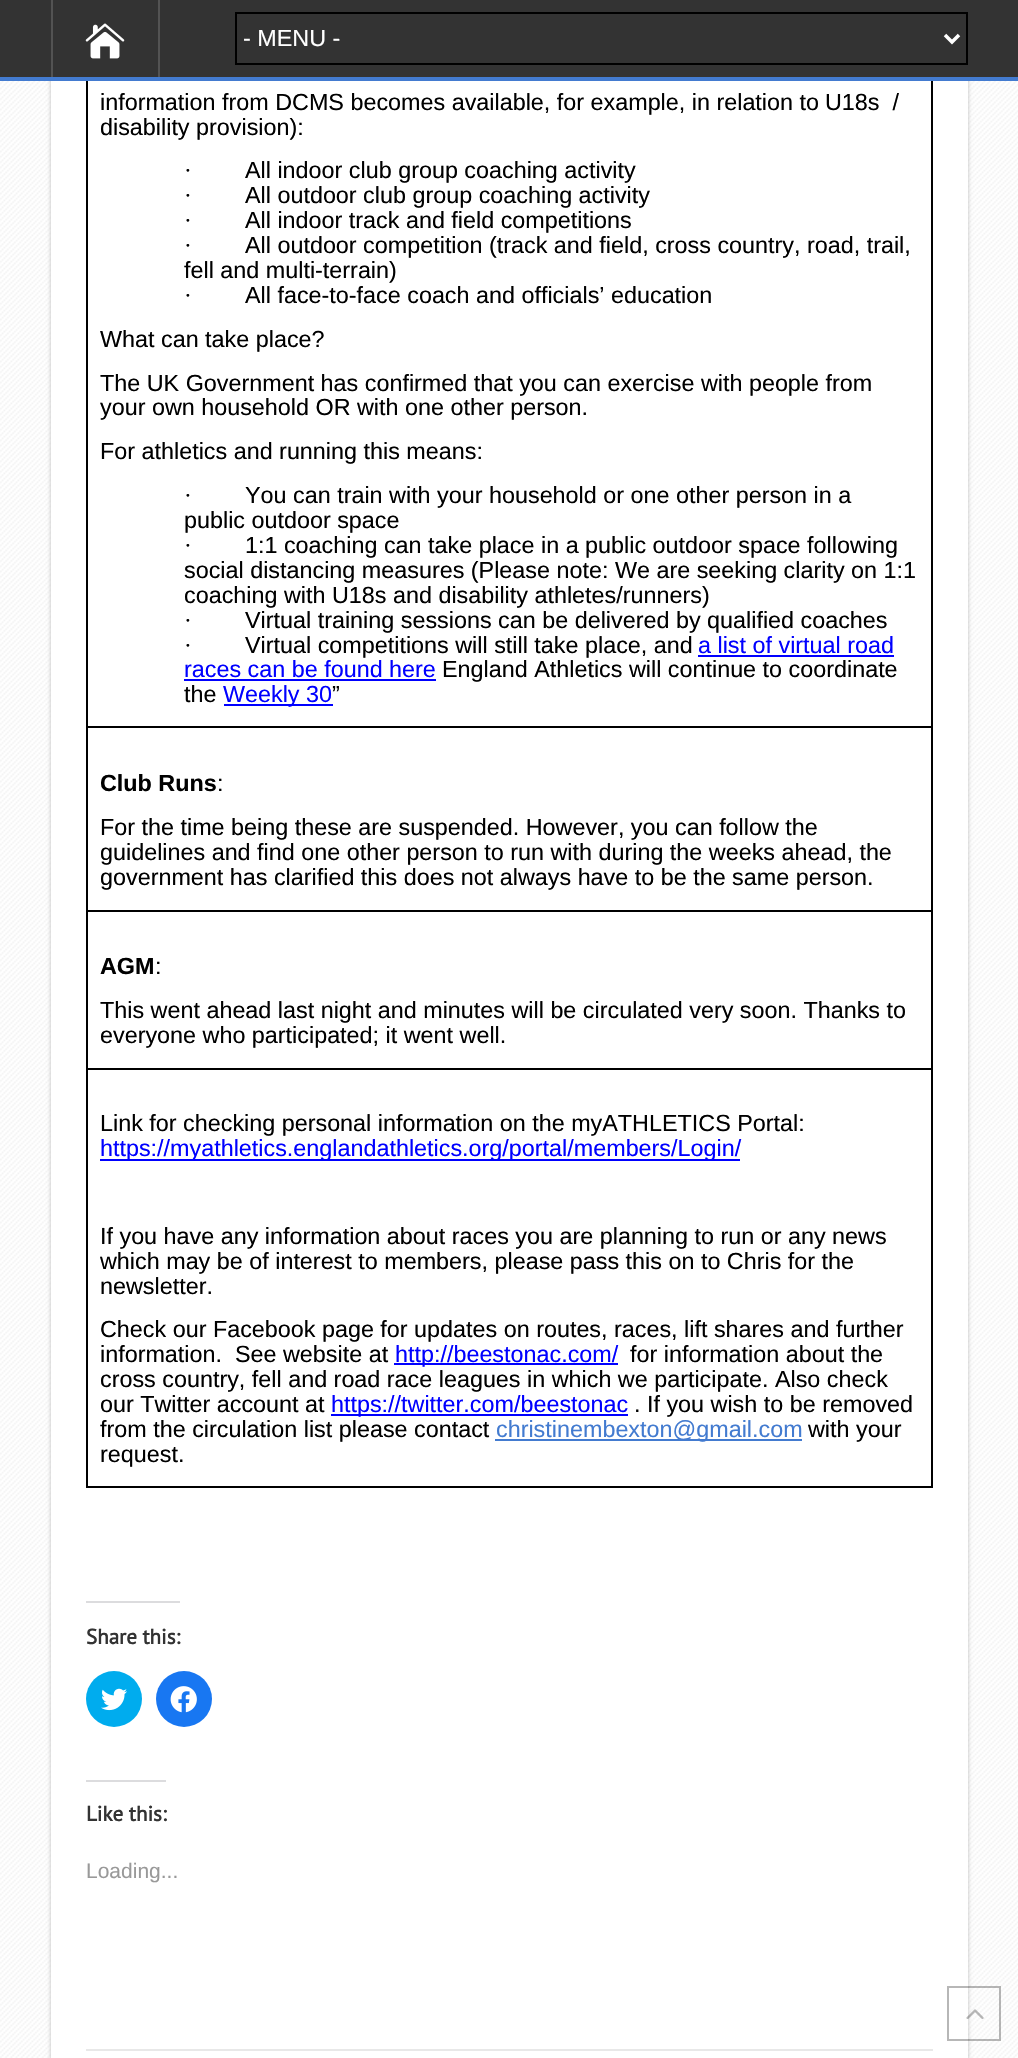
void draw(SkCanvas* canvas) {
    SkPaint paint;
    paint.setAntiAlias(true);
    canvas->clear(0xFFFFFFFF);
    canvas->drawImageRect(SkImages::DeferredFromEncodedData(SkData::MakeFromFileName("img4.png")), SkRect::MakeXYWH(0, 81, 1018, 1977), SkSamplingOptions());
    paint.setColor(0xFFBBBBBB);
    paint.setMaskFilter(SkMaskFilter::MakeBlur(kNormal_SkBlurStyle, 2));
    canvas->drawRect(SkRect::MakeXYWH(51, -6, 917, 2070), paint);
    paint.setMaskFilter(nullptr);
    paint.setColor(0xFF333333);
    canvas->drawRect(SkRect::MakeXYWH(0, 0, 1018, 77), paint);
    paint.setColor(0xFF437BD0);
    canvas->drawRect(SkRect::MakeXYWH(0, 77, 1018, 4), paint);
    paint.setColor(0xFF535353);
    canvas->drawRect(SkRect::MakeXYWH(158, 0, 2, 77), paint);
    canvas->drawRect(SkRect::MakeXYWH(51, 0, 2, 77), paint);
    canvas->drawImageRect(SkImages::DeferredFromEncodedData(SkData::MakeFromFileName("img1.png")), SkRect::MakeXYWH(85, 23, 40, 36), SkSamplingOptions());
    paint.setStyle(SkPaint::kStroke_Style);
    paint.setStrokeWidth(2);
    paint.setColor(0xFF000000);
    canvas->drawRect(SkRect::MakeXYWH(236, 13, 731, 51), paint);
    paint.setStrokeWidth(3.5f);
    paint.setColor(0xFFFFFFFF);
    canvas->drawPath(SkPathBuilder().moveTo(945, 35).lineTo(952, 42).lineTo(959, 35).detach(), paint);
    SkFont font1(fontMgr->matchFamilyStyle("Liberation Sans", SkFontStyle::Normal()), 23.35f);
    font1.setSubpixel(true);
    paint.setStyle(SkPaint::kFill_Style);
    canvas->drawString("- MENU -", 243, 46, font1, paint);
    canvas->drawRect(SkRect::MakeXYWH(51, 81, 917, 1977), paint);
    paint.setColor(0xFF000000);
    canvas->drawRect(SkRect::MakeXYWH(931, 81, 2, 1407), paint);
    canvas->drawRect(SkRect::MakeXYWH(86, 1486, 847, 2), paint);
    canvas->drawRect(SkRect::MakeXYWH(86, 1068, 2, 420), paint);
    canvas->drawRect(SkRect::MakeXYWH(86, 1068, 847, 2), paint);
    canvas->drawRect(SkRect::MakeXYWH(86, 910, 2, 159), paint);
    canvas->drawRect(SkRect::MakeXYWH(86, 910, 847, 2), paint);
    canvas->drawRect(SkRect::MakeXYWH(86, 726, 2, 186), paint);
    canvas->drawRect(SkRect::MakeXYWH(86, 726, 847, 2), paint);
    canvas->drawRect(SkRect::MakeXYWH(86, 81, 2, 647), paint);
    canvas->drawString("information from DCMS becomes available, for example, in relation to", 100, 110, font1, paint);
    canvas->drawString("U18s  /", 825, 110, font1, paint);
    canvas->drawString("disability provision):", 100, 135, font1, paint);
    SkFont font2(fontMgr->matchFamilyStyle("Liberation Serif", SkFontStyle::Normal()), 23.35f);
    font2.setSubpixel(true);
    canvas->drawString("·", 184, 178, font2, paint);
    canvas->drawString("All indoor club group coaching activity", 245, 178, font1, paint);
    canvas->drawString("·", 184, 203, font2, paint);
    canvas->drawString("All outdoor club group coaching activity", 245, 203, font1, paint);
    canvas->drawString("·", 184, 228, font2, paint);
    canvas->drawString("All indoor track and field competitions", 245, 228, font1, paint);
    canvas->drawString("·", 184, 253, font2, paint);
    canvas->drawString("All outdoor competition (track and field, cross country, road, trail,", 245, 253, font1, paint);
    canvas->drawString("fell and multi-terrain)", 184, 278, font1, paint);
    canvas->drawString("·", 184, 303, font2, paint);
    canvas->drawString("All face-to-face coach and officials’ education", 245, 303, font1, paint);
    canvas->drawString("What can take place?", 100, 347, font1, paint);
    canvas->drawString("The UK Government has confirmed that you can exercise with people from", 100, 391, font1, paint);
    canvas->drawString("your own household OR with one other person.", 100, 415, font1, paint);
    canvas->drawString("For athletics and running this means:", 100, 459, font1, paint);
    canvas->drawString("·", 184, 503, font2, paint);
    canvas->drawString("You can train with your household or one other person in a", 245, 503, font1, paint);
    canvas->drawString("public outdoor space", 184, 528, font1, paint);
    canvas->drawString("·", 184, 553, font2, paint);
    canvas->drawString("1:1 coaching can take place in a public outdoor space following", 245, 553, font1, paint);
    canvas->drawString("social distancing measures (Please note: We are seeking clarity on 1:1", 184, 578, font1, paint);
    canvas->drawString("coaching with U18s and disability athletes/runners)", 184, 603, font1, paint);
    canvas->drawString("·", 184, 628, font2, paint);
    canvas->drawString("Virtual training sessions can be delivered by qualified coaches", 245, 628, font1, paint);
    canvas->drawString("·", 184, 653, font2, paint);
    canvas->drawString("Virtual competitions will still take place, and", 245, 653, font1, paint);
    paint.setColor(0xFF0000FF);
    canvas->drawString("a list of virtual road", 698, 653, font1, paint);
    canvas->drawRect(SkRect::MakeXYWH(698, 655, 196, 2), paint);
    canvas->drawString("races can be found here", 184, 677, font1, paint);
    canvas->drawRect(SkRect::MakeXYWH(184, 679, 252, 2), paint);
    paint.setColor(0xFF000000);
    canvas->drawString("England Athletics will continue to coordinate", 442, 677, font1, paint);
    canvas->drawString("the", 184, 702, font1, paint);
    paint.setColor(0xFF0000FF);
    canvas->drawRect(SkRect::MakeXYWH(224, 704, 109, 2), paint);
    canvas->drawString("Weekly 30", 223, 702, font1, paint);
    paint.setColor(0xFF000000);
    canvas->drawString("”", 332, 702, font1, paint);
    SkFont font3(fontMgr->matchFamilyStyle("Liberation Sans", SkFontStyle::Bold()), 23.35f);
    font3.setSubpixel(true);
    canvas->drawString("Club Runs", 100, 791, font3, paint);
    canvas->drawString(":", 217, 791, font1, paint);
    canvas->drawString("For the time being these are suspended. However, you can follow the", 100, 835, font1, paint);
    canvas->drawString("guidelines and find one other person to run with during the weeks ahead, the", 100, 860, font1, paint);
    canvas->drawString("government has clarified this does not always have to be the same person.", 100, 885, font1, paint);
    canvas->drawString("AGM", 100, 974, font3, paint);
    canvas->drawString(":", 155, 974, font1, paint);
    canvas->drawString("This went ahead last night and minutes will be circulated very soon. Thanks to", 100, 1018, font1, paint);
    canvas->drawString("everyone who participated; it went well.", 100, 1043, font1, paint);
    canvas->drawString("Link for checking personal information on the myATHLETICS Portal:", 100, 1131, font1, paint);
    paint.setColor(0xFF0000FF);
    canvas->drawRect(SkRect::MakeXYWH(100, 1159, 640, 2), paint);
    canvas->drawString("https://myathletics.englandathletics.org/portal/members/Login/", 100, 1156, font1, paint);
    paint.setColor(0xFF000000);
    canvas->drawString("If you have any information about races you are planning to run or any news", 100, 1244, font1, paint);
    canvas->drawString("which may be of interest to members, please pass this on to Chris for the", 100, 1269, font1, paint);
    canvas->drawString("newsletter.", 100, 1294, font1, paint);
    canvas->drawString("Check our Facebook page for updates on routes, races, lift shares and further", 100, 1337, font1, paint);
    canvas->drawString("information.  See website at", 100, 1362, font1, paint);
    paint.setColor(0xFF0000FF);
    canvas->drawRect(SkRect::MakeXYWH(394, 1363, 224, 2), paint);
    canvas->drawString("http://beestonac.com/", 395, 1362, font1, paint);
    paint.setColor(0xFF000000);
    canvas->drawString("for information about the", 630, 1362, font1, paint);
    canvas->drawString("cross country, fell and road race leagues in which we participate. Also check", 100, 1387, font1, paint);
    canvas->drawString("our Twitter account at", 100, 1412, font1, paint);
    paint.setColor(0xFF0000FF);
    canvas->drawRect(SkRect::MakeXYWH(331, 1414, 297, 2), paint);
    canvas->drawString("https://twitter.com/beestonac", 331, 1412, font1, paint);
    paint.setColor(0xFF000000);
    canvas->drawString(". If you wish to be removed", 634, 1412, font1, paint);
    canvas->drawString("from the circulation list please contact", 100, 1437, font1, paint);
    paint.setColor(0xFF437BD0);
    canvas->drawRect(SkRect::MakeXYWH(495, 1439, 307, 2), paint);
    canvas->drawString("christinembexton@gmail.com", 496, 1437, font1, paint);
    paint.setColor(0xFF000000);
    canvas->drawString("with your", 808, 1437, font1, paint);
    canvas->drawString("request.", 100, 1462, font1, paint);
    paint.setColor(0xFFDCDCDE);
    canvas->drawRect(SkRect::MakeXYWH(86, 1601, 94, 2), paint);
    SkFont font4(fontMgr->matchFamilyStyle("PT Sans", SkFontStyle::Bold()), 21);
    font4.setSubpixel(true);
    paint.setColor(0xFF333333);
    canvas->drawString("Share this:", 86, 1644, font4, paint);
    paint.setColor(0xFF00ACEE);
    canvas->drawCircle(114, 1699, 28, paint);
    canvas->drawImageRect(SkImages::DeferredFromEncodedData(SkData::MakeFromFileName("img2.png")), SkRect::MakeXYWH(101, 1688, 26, 23), SkSamplingOptions());
    paint.setColor(0xFF1877F2);
    canvas->drawCircle(184, 1699, 28, paint);
    canvas->drawImageRect(SkImages::DeferredFromEncodedData(SkData::MakeFromFileName("img3.png")), SkRect::MakeXYWH(170, 1686, 27, 27), SkSamplingOptions());
    paint.setColor(0xFFDCDCDE);
    canvas->drawRect(SkRect::MakeXYWH(86, 1780, 80, 2), paint);
    paint.setColor(0xFF333333);
    canvas->drawString("Like this:", 86, 1821, font4, paint);
    SkFont font5(fontMgr->matchFamilyStyle("Liberation Sans", SkFontStyle::Normal()), 21);
    font5.setSubpixel(true);
    paint.setColor(0xFF999999);
    canvas->drawString("Loading...", 86, 1878, font5, paint);
    paint.setColor(0xFFE8E8E8);
    canvas->drawRect(SkRect::MakeXYWH(86, 2049, 847, 2), paint);
    paint.setStyle(SkPaint::kStroke_Style);
    paint.setStrokeWidth(2);
    paint.setColor(0x4D111111);
    canvas->drawRect(SkRect::MakeXYWH(948, 1987, 52, 53), paint);
    canvas->drawImageRect(SkImages::DeferredFromEncodedData(SkData::MakeFromFileName("img5.png")), SkRect::MakeXYWH(966, 2009, 18, 10), SkSamplingOptions());
}
